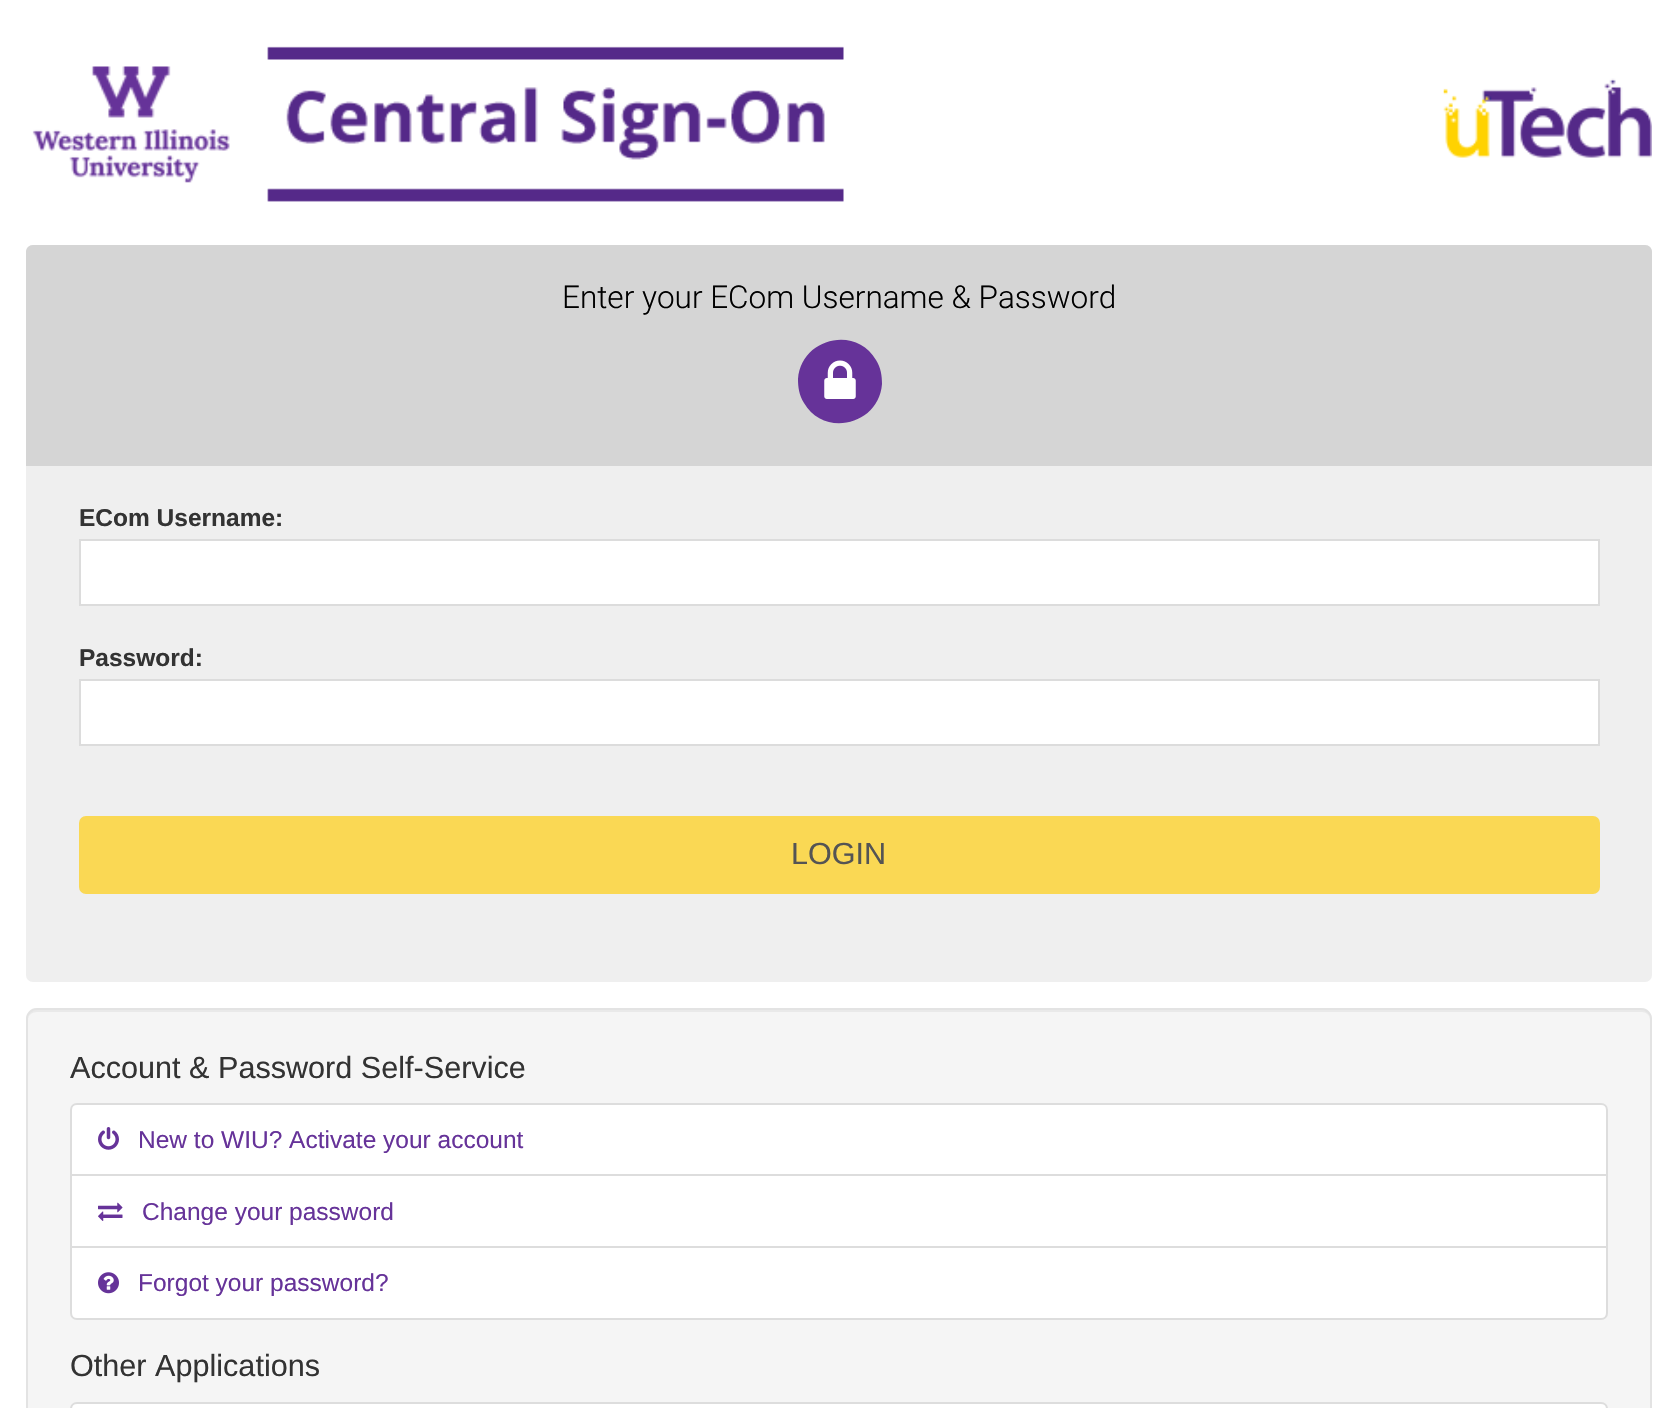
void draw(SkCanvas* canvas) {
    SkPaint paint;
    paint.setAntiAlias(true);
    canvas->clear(0xFFFFFFFF);
    canvas->drawImageRect(SkImages::DeferredFromEncodedData(SkData::MakeFromFileName("img1.png")), SkRect::MakeXYWH(32, 46, 812, 156), SkSamplingOptions());
    canvas->drawImageRect(SkImages::DeferredFromEncodedData(SkData::MakeFromFileName("img2.png")), SkRect::MakeXYWH(1443, 78, 209, 80), SkSamplingOptions());
    paint.setColor(0xFFEFEFEF);
    canvas->drawRoundRect(SkRect::MakeXYWH(26, 245, 1626, 737), 7, 7, paint);
    paint.setColor(0xFFD5D5D5);
    canvas->drawPath(SkPathBuilder().moveTo(33, 245).lineTo(1645, 245).cubicTo(1649, 245, 1652, 248, 1652, 252).lineTo(1652, 466).lineTo(26, 466).lineTo(26, 252).cubicTo(26, 248, 29, 245, 33, 245).close().detach(), paint);
    SkFont font1(fontMgr->matchFamilyStyle("Roboto", SkFontStyle(300, SkFontStyle::kNormal_Width, SkFontStyle::kUpright_Slant)), 31.5f);
    font1.setSubpixel(true);
    paint.setColor(0xFF000000);
    canvas->drawString("Enter your ECom Username & Password", 562, 308, font1, paint);
    paint.setColor(0xFF663399);
    canvas->drawPath(SkPathBuilder().moveTo(876, 360).cubicTo(881, 368, 882, 376, 882, 384).cubicTo(879, 425, 824, 438, 804, 403).cubicTo(799, 395, 798, 387, 798, 379).cubicTo(801, 338, 856, 325, 876, 360).close().detach(), paint);
    canvas->drawImageRect(SkImages::DeferredFromEncodedData(SkData::MakeFromFileName("img3.png")), SkRect::MakeXYWH(824, 360, 32, 39), SkSamplingOptions());
    SkFont font2(fontMgr->matchFamilyStyle("Liberation Sans", SkFontStyle::Bold()), 24.5f);
    font2.setSubpixel(true);
    paint.setColor(0xFF333333);
    canvas->drawString("ECom Username:", 79, 526, font2, paint);
    paint.setColor(0xFFFFFFFF);
    canvas->drawRect(SkRect::MakeXYWH(80, 540, 1519, 65), paint);
    paint.setStyle(SkPaint::kStroke_Style);
    paint.setStrokeWidth(2);
    paint.setColor(0xFFDCDCDC);
    canvas->drawRect(SkRect::MakeXYWH(80, 540, 1519, 65), paint);
    paint.setStyle(SkPaint::kFill_Style);
    paint.setColor(0xFF333333);
    canvas->drawString("Password:", 79, 666, font2, paint);
    paint.setColor(0xFFFFFFFF);
    canvas->drawRect(SkRect::MakeXYWH(80, 680, 1519, 65), paint);
    paint.setStyle(SkPaint::kStroke_Style);
    paint.setColor(0xFFDCDCDC);
    canvas->drawRect(SkRect::MakeXYWH(80, 680, 1519, 65), paint);
    paint.setStyle(SkPaint::kFill_Style);
    paint.setColor(0xFFFAD854);
    canvas->drawRoundRect(SkRect::MakeXYWH(79, 816, 1521, 78), 7, 7, paint);
    SkFont font3(fontMgr->matchFamilyStyle("Liberation Sans", SkFontStyle::Normal()), 30.6f);
    font3.setSubpixel(true);
    paint.setColor(0xFF545454);
    canvas->drawString("LOGIN", 791, 864, font3, paint);
    paint.setColor(0xFFF5F5F5);
    canvas->drawRoundRect(SkRect::MakeXYWH(26, 1008, 1626, 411), 11, 11, paint);
    paint.setColor(0xFFE9E9E9);
    canvas->drawPath(SkPathBuilder().moveTo(37, 1012).lineTo(1642, 1012).cubicTo(1646, 1012, 1650, 1015, 1650, 1020).cubicTo(1650, 1015, 1647, 1010, 1641, 1010).lineTo(37, 1010).cubicTo(31, 1010, 28, 1015, 28, 1020).cubicTo(28, 1015, 32, 1012, 37, 1012).close().detach(), paint);
    paint.setStyle(SkPaint::kStroke_Style);
    paint.setColor(0xFFE3E3E3);
    canvas->drawRoundRect(SkRect::MakeXYWH(27, 1009, 1624, 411), 10, 10, paint);
    paint.setStyle(SkPaint::kFill_Style);
    paint.setColor(0xFF333333);
    canvas->drawString("Account & Password Self-Service", 70, 1078, font3, paint);
    paint.setColor(0xFFFFFFFF);
    canvas->drawPath(SkPathBuilder().moveTo(77, 1104).lineTo(1601, 1104).cubicTo(1604.5f, 1104, 1607, 1106.5f, 1607, 1110).lineTo(1607, 1175).lineTo(71, 1175).lineTo(71, 1110).cubicTo(71, 1106.5f, 73.5f, 1104, 77, 1104).close().detach(), paint);
    paint.setStyle(SkPaint::kStroke_Style);
    paint.setColor(0xFFDDDDDD);
    canvas->drawPath(SkPathBuilder().moveTo(77, 1104).lineTo(1601, 1104).cubicTo(1604.5f, 1104, 1607, 1106.5f, 1607, 1110).lineTo(1607, 1175).lineTo(71, 1175).lineTo(71, 1110).cubicTo(71, 1106.5f, 73.5f, 1104, 77, 1104).close().detach(), paint);
    canvas->drawImageRect(SkImages::DeferredFromEncodedData(SkData::MakeFromFileName("img4.png")), SkRect::MakeXYWH(98, 1127, 21, 23), SkSamplingOptions());
    SkFont font4(fontMgr->matchFamilyStyle("Liberation Sans", SkFontStyle::Normal()), 24.5f);
    font4.setSubpixel(true);
    paint.setStyle(SkPaint::kFill_Style);
    paint.setColor(0xFF663399);
    canvas->drawString("New to WIU? Activate your account", 138, 1148, font4, paint);
    paint.setColor(0xFFFFFFFF);
    canvas->drawRect(SkRect::MakeXYWH(71, 1175, 1536, 72), paint);
    paint.setStyle(SkPaint::kStroke_Style);
    paint.setColor(0xFFDDDDDD);
    canvas->drawRect(SkRect::MakeXYWH(71, 1175, 1536, 72), paint);
    canvas->drawImageRect(SkImages::DeferredFromEncodedData(SkData::MakeFromFileName("img5.png")), SkRect::MakeXYWH(98, 1202, 25, 19), SkSamplingOptions());
    paint.setStyle(SkPaint::kFill_Style);
    paint.setColor(0xFF663399);
    canvas->drawString("Change your password", 142, 1220, font4, paint);
    paint.setColor(0xFFFFFFFF);
    canvas->drawPath(SkPathBuilder().moveTo(71, 1247).lineTo(1607, 1247).lineTo(1607, 1313).cubicTo(1607, 1316.5f, 1604.5f, 1319, 1601, 1319).lineTo(77, 1319).cubicTo(73.5f, 1319, 71, 1316.5f, 71, 1313).close().detach(), paint);
    paint.setStyle(SkPaint::kStroke_Style);
    paint.setColor(0xFFDDDDDD);
    canvas->drawPath(SkPathBuilder().moveTo(71, 1247).lineTo(1607, 1247).lineTo(1607, 1313).cubicTo(1607, 1316.5f, 1604.5f, 1319, 1601, 1319).lineTo(77, 1319).cubicTo(73.5f, 1319, 71, 1316.5f, 71, 1313).close().detach(), paint);
    canvas->drawImageRect(SkImages::DeferredFromEncodedData(SkData::MakeFromFileName("img6.png")), SkRect::MakeXYWH(98, 1272, 21, 22), SkSamplingOptions());
    paint.setStyle(SkPaint::kFill_Style);
    paint.setColor(0xFF663399);
    canvas->drawString("Forgot your password?", 138, 1291, font4, paint);
    paint.setColor(0xFF333333);
    canvas->drawString("Other Applications", 70, 1376, font3, paint);
    paint.setColor(0xFFFFFFFF);
    canvas->drawPath(SkPathBuilder().moveTo(77, 1403).lineTo(1601, 1403).cubicTo(1604.5f, 1403, 1607, 1405.5f, 1607, 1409).lineTo(1607, 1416).lineTo(71, 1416).lineTo(71, 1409).cubicTo(71, 1405.5f, 73.5f, 1403, 77, 1403).close().detach(), paint);
    paint.setStyle(SkPaint::kStroke_Style);
    paint.setColor(0xFFDDDDDD);
    canvas->drawPath(SkPathBuilder().moveTo(77, 1403).lineTo(1601, 1403).cubicTo(1604.5f, 1403, 1607, 1405.5f, 1607, 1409).lineTo(1607, 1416).lineTo(71, 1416).lineTo(71, 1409).cubicTo(71, 1405.5f, 73.5f, 1403, 77, 1403).close().detach(), paint);
}
